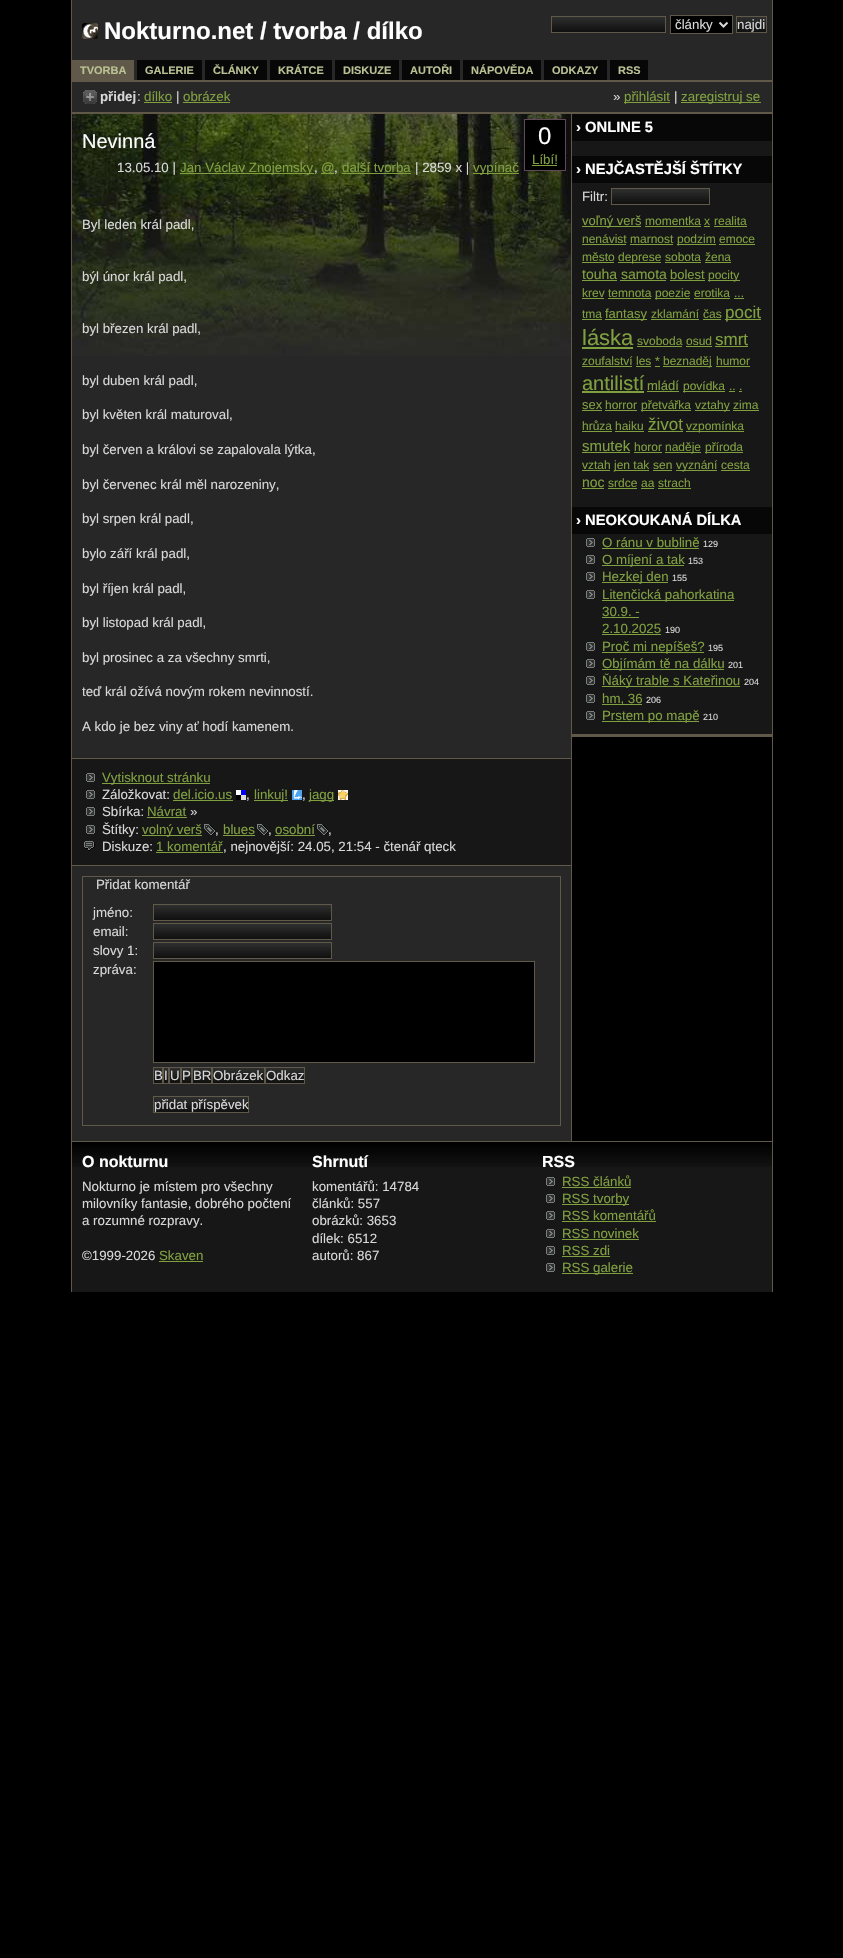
void draw(SkCanvas* canvas) {
    SkPaint paint;
    paint.setAntiAlias(true);
    canvas->clear(0xFF000000);
    paint.setColor(0xFF605848);
    canvas->drawRect(SkRect::MakeXYWH(772, 0, 1, 1292), paint);
    canvas->drawRect(SkRect::MakeXYWH(71, 0, 1, 1292), paint);
    paint.setColor(0xFF272727);
    canvas->drawRect(SkRect::MakeXYWH(72, 0, 700, 60), paint);
    canvas->drawImageRect(SkImages::DeferredFromEncodedData(SkData::MakeFromFileName("img1.png")), SkRect::MakeXYWH(82, 23, 16, 16), SkSamplingOptions());
    SkFont font1(fontMgr->matchFamilyStyle("Liberation Sans", SkFontStyle::Bold()), 24);
    font1.setSubpixel(true);
    paint.setColor(0xFFFFFFFF);
    canvas->drawString("Nokturno.net / tvorba / dílko", 104, 39, font1, paint);
    canvas->drawImageRect(SkImages::DeferredFromEncodedData(SkData::MakeFromFileName("img2.png")), SkRect::MakeXYWH(552, 17, 113, 15), SkSamplingOptions());
    paint.setStyle(SkPaint::kStroke_Style);
    paint.setStrokeWidth(1);
    paint.setColor(0xFF605848);
    canvas->drawRect(SkRect::MakeXYWH(551.5f, 16.5f, 114, 16), paint);
    paint.setStyle(SkPaint::kFill_Style);
    paint.setColor(0xFF000000);
    canvas->drawRect(SkRect::MakeXYWH(670.5f, 15.5f, 62, 18), paint);
    paint.setStyle(SkPaint::kStroke_Style);
    paint.setColor(0xFF605848);
    canvas->drawRect(SkRect::MakeXYWH(670.5f, 15.5f, 62, 18), paint);
    paint.setStrokeWidth(2);
    paint.setColor(0xFFD8D8D8);
    canvas->drawPath(SkPathBuilder().moveTo(719.5f, 22.5f).lineTo(723.5f, 26.5f).lineTo(727.5f, 22.5f).detach(), paint);
    SkFont font2(fontMgr->matchFamilyStyle("Liberation Sans", SkFontStyle::Normal()), 13.3f);
    font2.setSubpixel(true);
    paint.setStyle(SkPaint::kFill_Style);
    canvas->drawString("články", 675, 29, font2, paint);
    canvas->drawImageRect(SkImages::DeferredFromEncodedData(SkData::MakeFromFileName("img3.png")), SkRect::MakeXYWH(737, 17, 29, 15), SkSamplingOptions());
    paint.setStyle(SkPaint::kStroke_Style);
    paint.setStrokeWidth(1);
    paint.setColor(0xFF605848);
    canvas->drawRect(SkRect::MakeXYWH(736.5f, 16.5f, 30, 16), paint);
    paint.setStyle(SkPaint::kFill_Style);
    paint.setColor(0xFFD8D8D8);
    canvas->drawString("najdi", 737, 29, font2, paint);
    paint.setColor(0xFF272727);
    canvas->drawRect(SkRect::MakeXYWH(648, 60, 124, 20), paint);
    paint.setColor(0xFF605848);
    canvas->drawRect(SkRect::MakeXYWH(72, 80, 700, 2), paint);
    canvas->drawRect(SkRect::MakeXYWH(72, 60, 62, 20), paint);
    paint.setColor(0xFF272727);
    canvas->drawRect(SkRect::MakeXYWH(134, 60, 3, 20), paint);
    SkFont font3(fontMgr->matchFamilyStyle("Liberation Sans", SkFontStyle::Bold()), 11);
    font3.setSubpixel(true);
    paint.setColor(0xFFBAC294);
    canvas->drawString("TVORBA", 80, 74, font3, paint);
    paint.setColor(0xFF070707);
    canvas->drawRect(SkRect::MakeXYWH(137, 60, 65, 20), paint);
    paint.setColor(0xFF272727);
    canvas->drawRect(SkRect::MakeXYWH(202, 60, 3, 20), paint);
    paint.setColor(0xFFBAC294);
    canvas->drawString("GALERIE", 145, 74, font3, paint);
    paint.setColor(0xFF070707);
    canvas->drawRect(SkRect::MakeXYWH(205, 60, 62, 20), paint);
    paint.setColor(0xFF272727);
    canvas->drawRect(SkRect::MakeXYWH(267, 60, 3, 20), paint);
    paint.setColor(0xFFBAC294);
    canvas->drawString("ČLÁNKY", 213, 74, font3, paint);
    paint.setColor(0xFF070707);
    canvas->drawRect(SkRect::MakeXYWH(270, 60, 62, 20), paint);
    paint.setColor(0xFF272727);
    canvas->drawRect(SkRect::MakeXYWH(332, 60, 3, 20), paint);
    paint.setColor(0xFFBAC294);
    canvas->drawString("KRÁTCE", 278, 74, font3, paint);
    paint.setColor(0xFF070707);
    canvas->drawRect(SkRect::MakeXYWH(335, 60, 64, 20), paint);
    paint.setColor(0xFF272727);
    canvas->drawRect(SkRect::MakeXYWH(399, 60, 3, 20), paint);
    paint.setColor(0xFFBAC294);
    canvas->drawString("DISKUZE", 343, 74, font3, paint);
    paint.setColor(0xFF070707);
    canvas->drawRect(SkRect::MakeXYWH(402, 60, 58, 20), paint);
    paint.setColor(0xFF272727);
    canvas->drawRect(SkRect::MakeXYWH(460, 60, 3, 20), paint);
    paint.setColor(0xFFBAC294);
    canvas->drawString("AUTOŘI", 410, 74, font3, paint);
    paint.setColor(0xFF070707);
    canvas->drawRect(SkRect::MakeXYWH(463, 60, 78, 20), paint);
    paint.setColor(0xFF272727);
    canvas->drawRect(SkRect::MakeXYWH(541, 60, 3, 20), paint);
    paint.setColor(0xFFBAC294);
    canvas->drawString("NÁPOVĚDA", 471, 74, font3, paint);
    paint.setColor(0xFF070707);
    canvas->drawRect(SkRect::MakeXYWH(544, 60, 63, 20), paint);
    paint.setColor(0xFF272727);
    canvas->drawRect(SkRect::MakeXYWH(607, 60, 3, 20), paint);
    paint.setColor(0xFFBAC294);
    canvas->drawString("ODKAZY", 552, 74, font3, paint);
    paint.setColor(0xFF070707);
    canvas->drawRect(SkRect::MakeXYWH(610, 60, 38, 20), paint);
    paint.setColor(0xFFBAC294);
    canvas->drawString("RSS", 618, 74, font3, paint);
    paint.setColor(0xFF272727);
    canvas->drawRect(SkRect::MakeXYWH(72, 82, 700, 30), paint);
    paint.setColor(0xFF605848);
    canvas->drawRect(SkRect::MakeXYWH(72, 112, 700, 2), paint);
    canvas->drawImageRect(SkImages::DeferredFromEncodedData(SkData::MakeFromFileName("img4.png")), SkRect::MakeXYWH(83, 90, 14, 14), SkSamplingOptions());
    SkFont font4(fontMgr->matchFamilyStyle("Liberation Sans", SkFontStyle::Bold()), 13.3f);
    font4.setSubpixel(true);
    paint.setColor(0xFFD8D8D8);
    canvas->drawString("přidej", 100, 101, font4, paint);
    canvas->drawString(":", 137, 101, font2, paint);
    paint.setColor(0xFF80A040);
    canvas->drawString("dílko", 144, 101, font2, paint);
    canvas->drawRect(SkRect::MakeXYWH(144, 102, 28, 1), paint);
    paint.setColor(0xFFD8D8D8);
    canvas->drawString("|", 176, 101, font2, paint);
    paint.setColor(0xFF80A040);
    canvas->drawString("obrázek", 183, 101, font2, paint);
    canvas->drawRect(SkRect::MakeXYWH(183, 102, 47, 1), paint);
    paint.setColor(0xFFD8D8D8);
    canvas->drawString("»", 613, 101, font2, paint);
    paint.setColor(0xFF80A040);
    canvas->drawRect(SkRect::MakeXYWH(624, 102, 46, 1), paint);
    canvas->drawString("přihlásit", 624, 101, font2, paint);
    paint.setColor(0xFFD8D8D8);
    canvas->drawString("|", 674, 101, font2, paint);
    paint.setColor(0xFF80A040);
    canvas->drawRect(SkRect::MakeXYWH(681, 102, 80, 1), paint);
    canvas->drawString("zaregistruj se", 681, 101, font2, paint);
    paint.setColor(0xFF272727);
    canvas->drawRect(SkRect::MakeXYWH(72, 356, 499, 785), paint);
    canvas->drawImageRect(SkImages::DeferredFromEncodedData(SkData::MakeFromFileName("img5.png")), SkRect::MakeXYWH(72, 114, 499, 242), SkSamplingOptions());
    paint.setColor(0xFF605848);
    canvas->drawRect(SkRect::MakeXYWH(571, 114, 1, 1027), paint);
    SkFont font5(fontMgr->matchFamilyStyle("Liberation Sans", SkFontStyle::Normal()), 20);
    font5.setSubpixel(true);
    paint.setColor(0xFFFFFFFF);
    canvas->drawString("Nevinná", 82, 148, font5, paint);
    paint.setColor(0xFF000000);
    canvas->drawRect(SkRect::MakeXYWH(524.5f, 119.5f, 41, 51), paint);
    paint.setStyle(SkPaint::kStroke_Style);
    paint.setColor(0xFF604858);
    canvas->drawRect(SkRect::MakeXYWH(524.5f, 119.5f, 41, 51), paint);
    SkFont font6(fontMgr->matchFamilyStyle("Liberation Sans", SkFontStyle::Normal()), 24);
    font6.setSubpixel(true);
    paint.setStyle(SkPaint::kFill_Style);
    paint.setColor(0xFFFFFFFF);
    canvas->drawString("0", 538, 144, font6, paint);
    paint.setColor(0xFF80A040);
    canvas->drawString("Líbí!", 532, 164, font2, paint);
    canvas->drawRect(SkRect::MakeXYWH(532, 165, 25, 1), paint);
    paint.setColor(0xFFD8D8D8);
    canvas->drawString("13.05.10 |", 117, 172, font2, paint);
    paint.setColor(0xFF80A040);
    canvas->drawRect(SkRect::MakeXYWH(180, 173, 134, 1), paint);
    canvas->drawString("Jan Václav Znojemsky", 180, 172, font2, paint);
    paint.setColor(0xFFD8D8D8);
    canvas->drawString(",", 314, 172, font2, paint);
    paint.setColor(0xFF80A040);
    canvas->drawRect(SkRect::MakeXYWH(321, 173, 13, 1), paint);
    canvas->drawString("@", 321, 172, font2, paint);
    paint.setColor(0xFFD8D8D8);
    canvas->drawString(",", 334, 172, font2, paint);
    paint.setColor(0xFF80A040);
    canvas->drawString("další tvorba", 342, 172, font2, paint);
    canvas->drawRect(SkRect::MakeXYWH(342, 173, 69, 1), paint);
    paint.setColor(0xFFD8D8D8);
    canvas->drawString("| 2859 x |", 415, 172, font2, paint);
    paint.setColor(0xFF80A040);
    canvas->drawRect(SkRect::MakeXYWH(473, 173, 46, 1), paint);
    canvas->drawString("vypínač", 473, 172, font2, paint);
    paint.setColor(0xFFD8D8D8);
    canvas->drawString("Byl leden král padl,", 82, 229, font2, paint);
    canvas->drawString("býl únor král padl,", 82, 281, font2, paint);
    canvas->drawString("byl březen král padl,", 82, 333, font2, paint);
    canvas->drawString("byl duben král padl,", 82, 385, font2, paint);
    canvas->drawString("byl květen král maturoval,", 82, 419, font2, paint);
    canvas->drawString("byl červen a královi se zapalovala lýtka,", 82, 454, font2, paint);
    canvas->drawString("byl červenec král měl narozeniny,", 82, 489, font2, paint);
    canvas->drawString("byl srpen král padl,", 82, 523, font2, paint);
    canvas->drawString("bylo září král padl,", 82, 558, font2, paint);
    canvas->drawString("byl říjen král padl,", 82, 593, font2, paint);
    canvas->drawString("byl listopad král padl,", 82, 627, font2, paint);
    canvas->drawString("byl prosinec a za všechny smrti,", 82, 662, font2, paint);
    canvas->drawString("teď král ožívá novým rokem nevinností.", 82, 696, font2, paint);
    canvas->drawString("A kdo je bez viny ať hodí kamenem.", 82, 731, font2, paint);
    paint.setColor(0xFF171717);
    canvas->drawRect(SkRect::MakeXYWH(72, 759, 499, 106), paint);
    paint.setColor(0xFF605848);
    canvas->drawRect(SkRect::MakeXYWH(72, 758, 499, 1), paint);
    canvas->drawRect(SkRect::MakeXYWH(72, 865, 499, 1), paint);
    canvas->drawImageRect(SkImages::DeferredFromEncodedData(SkData::MakeFromFileName("img6.png")), SkRect::MakeXYWH(86, 773, 9, 9), SkSamplingOptions());
    paint.setColor(0xFF80A040);
    canvas->drawRect(SkRect::MakeXYWH(102, 783, 108, 1), paint);
    canvas->drawString("Vytisknout stránku", 102, 782, font2, paint);
    canvas->drawImageRect(SkImages::DeferredFromEncodedData(SkData::MakeFromFileName("img6.png")), SkRect::MakeXYWH(86, 790, 9, 9), SkSamplingOptions());
    paint.setColor(0xFFD8D8D8);
    canvas->drawString("Záložkovat:", 102, 799, font2, paint);
    paint.setColor(0xFF80A040);
    canvas->drawString("del.icio.us", 173, 799, font2, paint);
    canvas->drawRect(SkRect::MakeXYWH(173, 800, 60, 1), paint);
    canvas->drawImageRect(SkImages::DeferredFromEncodedData(SkData::MakeFromFileName("img7.png")), SkRect::MakeXYWH(236, 790, 10, 10), SkSamplingOptions());
    paint.setColor(0xFFD8D8D8);
    canvas->drawString(",", 246, 799, font2, paint);
    paint.setColor(0xFF80A040);
    canvas->drawRect(SkRect::MakeXYWH(254, 800, 34, 1), paint);
    canvas->drawString("linkuj!", 254, 799, font2, paint);
    canvas->drawImageRect(SkImages::DeferredFromEncodedData(SkData::MakeFromFileName("img8.png")), SkRect::MakeXYWH(292, 790, 10, 10), SkSamplingOptions());
    paint.setColor(0xFFD8D8D8);
    canvas->drawString(",", 302, 799, font2, paint);
    paint.setColor(0xFF80A040);
    canvas->drawRect(SkRect::MakeXYWH(309, 800, 25, 1), paint);
    canvas->drawString("jagg", 309, 799, font2, paint);
    canvas->drawImageRect(SkImages::DeferredFromEncodedData(SkData::MakeFromFileName("img9.png")), SkRect::MakeXYWH(338, 790, 10, 10), SkSamplingOptions());
    canvas->drawImageRect(SkImages::DeferredFromEncodedData(SkData::MakeFromFileName("img6.png")), SkRect::MakeXYWH(86, 807, 9, 9), SkSamplingOptions());
    paint.setColor(0xFFD8D8D8);
    canvas->drawString("Sbírka:", 102, 816, font2, paint);
    paint.setColor(0xFF80A040);
    canvas->drawString("Návrat", 147, 816, font2, paint);
    canvas->drawRect(SkRect::MakeXYWH(147, 817, 40, 1), paint);
    paint.setColor(0xFFD8D8D8);
    canvas->drawString("»", 190, 816, font2, paint);
    canvas->drawImageRect(SkImages::DeferredFromEncodedData(SkData::MakeFromFileName("img6.png")), SkRect::MakeXYWH(86, 825, 9, 9), SkSamplingOptions());
    canvas->drawString("Štítky:", 102, 834, font2, paint);
    paint.setColor(0xFF80A040);
    canvas->drawRect(SkRect::MakeXYWH(142, 835, 60, 1), paint);
    canvas->drawString("volný verš", 142, 834, font2, paint);
    canvas->drawImageRect(SkImages::DeferredFromEncodedData(SkData::MakeFromFileName("img10.png")), SkRect::MakeXYWH(204, 824, 11, 11), SkSamplingOptions());
    paint.setColor(0xFFD8D8D8);
    canvas->drawString(",", 215, 834, font2, paint);
    paint.setColor(0xFF80A040);
    canvas->drawString("blues", 223, 834, font2, paint);
    canvas->drawRect(SkRect::MakeXYWH(223, 835, 32, 1), paint);
    canvas->drawImageRect(SkImages::DeferredFromEncodedData(SkData::MakeFromFileName("img10.png")), SkRect::MakeXYWH(257, 824, 11, 11), SkSamplingOptions());
    paint.setColor(0xFFD8D8D8);
    canvas->drawString(",", 268, 834, font2, paint);
    paint.setColor(0xFF80A040);
    canvas->drawString("osobní", 275, 834, font2, paint);
    canvas->drawRect(SkRect::MakeXYWH(275, 835, 40, 1), paint);
    canvas->drawImageRect(SkImages::DeferredFromEncodedData(SkData::MakeFromFileName("img10.png")), SkRect::MakeXYWH(317, 824, 11, 11), SkSamplingOptions());
    paint.setColor(0xFFD8D8D8);
    canvas->drawString(",", 328, 834, font2, paint);
    canvas->drawImageRect(SkImages::DeferredFromEncodedData(SkData::MakeFromFileName("img11.png")), SkRect::MakeXYWH(84, 841, 11, 10), SkSamplingOptions());
    canvas->drawString("Diskuze:", 102, 851, font2, paint);
    paint.setColor(0xFF80A040);
    canvas->drawString("1 komentář", 156, 851, font2, paint);
    canvas->drawRect(SkRect::MakeXYWH(156, 852, 67, 1), paint);
    paint.setColor(0xFFD8D8D8);
    canvas->drawString(", nejnovější: 24.05, 21:54 - čtenář qteck", 223, 851, font2, paint);
    paint.setStyle(SkPaint::kStroke_Style);
    paint.setColor(0xFF605848);
    canvas->drawRect(SkRect::MakeXYWH(82.5f, 876.5f, 478, 249), paint);
    paint.setStyle(SkPaint::kFill_Style);
    paint.setColor(0xFFD8D8D8);
    canvas->drawString("Přidat komentář", 96, 889, font2, paint);
    canvas->drawString("jméno:", 93, 917, font2, paint);
    canvas->drawImageRect(SkImages::DeferredFromEncodedData(SkData::MakeFromFileName("img12.png")), SkRect::MakeXYWH(154, 905, 177, 15), SkSamplingOptions());
    paint.setStyle(SkPaint::kStroke_Style);
    paint.setColor(0xFF605848);
    canvas->drawRect(SkRect::MakeXYWH(153.5f, 904.5f, 178, 16), paint);
    paint.setStyle(SkPaint::kFill_Style);
    paint.setColor(0xFFD8D8D8);
    canvas->drawString("email:", 93, 936, font2, paint);
    canvas->drawImageRect(SkImages::DeferredFromEncodedData(SkData::MakeFromFileName("img12.png")), SkRect::MakeXYWH(154, 924, 177, 15), SkSamplingOptions());
    paint.setStyle(SkPaint::kStroke_Style);
    paint.setColor(0xFF605848);
    canvas->drawRect(SkRect::MakeXYWH(153.5f, 923.5f, 178, 16), paint);
    paint.setStyle(SkPaint::kFill_Style);
    paint.setColor(0xFFD8D8D8);
    canvas->drawString("slovy 1:", 93, 955, font2, paint);
    canvas->drawImageRect(SkImages::DeferredFromEncodedData(SkData::MakeFromFileName("img12.png")), SkRect::MakeXYWH(154, 943, 177, 15), SkSamplingOptions());
    paint.setStyle(SkPaint::kStroke_Style);
    paint.setColor(0xFF605848);
    canvas->drawRect(SkRect::MakeXYWH(153.5f, 942.5f, 178, 16), paint);
    paint.setStyle(SkPaint::kFill_Style);
    paint.setColor(0xFFD8D8D8);
    canvas->drawString("zpráva:", 93, 974, font2, paint);
    paint.setColor(0xFF000000);
    canvas->drawRect(SkRect::MakeXYWH(153.5f, 961.5f, 381, 101), paint);
    paint.setStyle(SkPaint::kStroke_Style);
    paint.setColor(0xFF605848);
    canvas->drawRect(SkRect::MakeXYWH(153.5f, 961.5f, 381, 101), paint);
    canvas->drawImageRect(SkImages::DeferredFromEncodedData(SkData::MakeFromFileName("img13.png")), SkRect::MakeXYWH(154, 1068, 8, 15), SkSamplingOptions());
    canvas->drawRect(SkRect::MakeXYWH(153.5f, 1067.5f, 9, 16), paint);
    paint.setStyle(SkPaint::kFill_Style);
    paint.setColor(0xFFD8D8D8);
    canvas->drawString("B", 154, 1080, font2, paint);
    canvas->drawImageRect(SkImages::DeferredFromEncodedData(SkData::MakeFromFileName("img14.png")), SkRect::MakeXYWH(164, 1068, 4, 15), SkSamplingOptions());
    paint.setStyle(SkPaint::kStroke_Style);
    paint.setColor(0xFF605848);
    canvas->drawRect(SkRect::MakeXYWH(163.5f, 1067.5f, 5, 16), paint);
    paint.setStyle(SkPaint::kFill_Style);
    paint.setColor(0xFFD8D8D8);
    canvas->drawString("I", 164, 1080, font2, paint);
    canvas->drawImageRect(SkImages::DeferredFromEncodedData(SkData::MakeFromFileName("img15.png")), SkRect::MakeXYWH(170, 1068, 10, 15), SkSamplingOptions());
    paint.setStyle(SkPaint::kStroke_Style);
    paint.setColor(0xFF605848);
    canvas->drawRect(SkRect::MakeXYWH(169.5f, 1067.5f, 11, 16), paint);
    paint.setStyle(SkPaint::kFill_Style);
    paint.setColor(0xFFD8D8D8);
    canvas->drawString("U", 170, 1080, font2, paint);
    canvas->drawImageRect(SkImages::DeferredFromEncodedData(SkData::MakeFromFileName("img16.png")), SkRect::MakeXYWH(182, 1068, 9, 15), SkSamplingOptions());
    paint.setStyle(SkPaint::kStroke_Style);
    paint.setColor(0xFF605848);
    canvas->drawRect(SkRect::MakeXYWH(181.5f, 1067.5f, 10, 16), paint);
    paint.setStyle(SkPaint::kFill_Style);
    paint.setColor(0xFFD8D8D8);
    canvas->drawString("P", 182, 1080, font2, paint);
    canvas->drawImageRect(SkImages::DeferredFromEncodedData(SkData::MakeFromFileName("img17.png")), SkRect::MakeXYWH(193, 1068, 18, 15), SkSamplingOptions());
    paint.setStyle(SkPaint::kStroke_Style);
    paint.setColor(0xFF605848);
    canvas->drawRect(SkRect::MakeXYWH(192.5f, 1067.5f, 19, 16), paint);
    paint.setStyle(SkPaint::kFill_Style);
    paint.setColor(0xFFD8D8D8);
    canvas->drawString("BR", 193, 1080, font2, paint);
    canvas->drawImageRect(SkImages::DeferredFromEncodedData(SkData::MakeFromFileName("img18.png")), SkRect::MakeXYWH(213, 1068, 51, 15), SkSamplingOptions());
    paint.setStyle(SkPaint::kStroke_Style);
    paint.setColor(0xFF605848);
    canvas->drawRect(SkRect::MakeXYWH(212.5f, 1067.5f, 52, 16), paint);
    paint.setStyle(SkPaint::kFill_Style);
    paint.setColor(0xFFD8D8D8);
    canvas->drawString("Obrázek", 213, 1080, font2, paint);
    canvas->drawImageRect(SkImages::DeferredFromEncodedData(SkData::MakeFromFileName("img19.png")), SkRect::MakeXYWH(266, 1068, 38, 15), SkSamplingOptions());
    paint.setStyle(SkPaint::kStroke_Style);
    paint.setColor(0xFF605848);
    canvas->drawRect(SkRect::MakeXYWH(265.5f, 1067.5f, 39, 16), paint);
    paint.setStyle(SkPaint::kFill_Style);
    paint.setColor(0xFFD8D8D8);
    canvas->drawString("Odkaz", 266, 1080, font2, paint);
    canvas->drawImageRect(SkImages::DeferredFromEncodedData(SkData::MakeFromFileName("img20.png")), SkRect::MakeXYWH(154, 1097, 94, 15), SkSamplingOptions());
    paint.setStyle(SkPaint::kStroke_Style);
    paint.setColor(0xFF605848);
    canvas->drawRect(SkRect::MakeXYWH(153.5f, 1096.5f, 95, 16), paint);
    paint.setStyle(SkPaint::kFill_Style);
    paint.setColor(0xFFD8D8D8);
    canvas->drawString("přidat příspěvek", 154, 1109, font2, paint);
    paint.setColor(0xFF171717);
    canvas->drawRect(SkRect::MakeXYWH(572, 141, 200, 593), paint);
    paint.setColor(0xFF605848);
    canvas->drawRect(SkRect::MakeXYWH(572, 734, 200, 3), paint);
    paint.setColor(0xFF070707);
    canvas->drawRect(SkRect::MakeXYWH(572, 114, 200, 27), paint);
    SkFont font7(fontMgr->matchFamilyStyle("Liberation Sans", SkFontStyle::Bold()), 14.75f);
    font7.setSubpixel(true);
    paint.setColor(0xFFFFFFFF);
    canvas->drawString("› ONLINE 5", 576, 132, font7, paint);
    paint.setColor(0xFF070707);
    canvas->drawRect(SkRect::MakeXYWH(572, 156, 200, 27), paint);
    paint.setColor(0xFFFFFFFF);
    canvas->drawString("› NEJČASTĚJŠÍ ŠTÍTKY", 576, 174, font7, paint);
    paint.setColor(0xFFD8D8D8);
    canvas->drawString("Filtr:", 582, 201, font2, paint);
    canvas->drawImageRect(SkImages::DeferredFromEncodedData(SkData::MakeFromFileName("img21.png")), SkRect::MakeXYWH(612, 189, 97, 15), SkSamplingOptions());
    paint.setStyle(SkPaint::kStroke_Style);
    paint.setColor(0xFF605848);
    canvas->drawRect(SkRect::MakeXYWH(611.5f, 188.5f, 98, 16), paint);
    paint.setStyle(SkPaint::kFill_Style);
    paint.setColor(0xFF80A040);
    canvas->drawRect(SkRect::MakeXYWH(582, 226, 59, 1), paint);
    SkFont font8(fontMgr->matchFamilyStyle("Liberation Sans", SkFontStyle::Normal()), 13);
    font8.setSubpixel(true);
    canvas->drawString("voľný verš", 582, 225, font8, paint);
    SkFont font9(fontMgr->matchFamilyStyle("Liberation Sans", SkFontStyle::Normal()), 12);
    font9.setSubpixel(true);
    canvas->drawString("momentka", 645, 225, font9, paint);
    canvas->drawRect(SkRect::MakeXYWH(645, 226, 56, 1), paint);
    canvas->drawString("x", 704, 225, font9, paint);
    canvas->drawRect(SkRect::MakeXYWH(704, 226, 6, 1), paint);
    canvas->drawString("realita", 714, 225, font9, paint);
    canvas->drawRect(SkRect::MakeXYWH(714, 226, 33, 1), paint);
    canvas->drawString("nenávist", 582, 243, font9, paint);
    canvas->drawRect(SkRect::MakeXYWH(582, 244, 44, 1), paint);
    canvas->drawString("marnost", 630, 243, font9, paint);
    canvas->drawRect(SkRect::MakeXYWH(630, 244, 43, 1), paint);
    canvas->drawRect(SkRect::MakeXYWH(677, 244, 39, 1), paint);
    canvas->drawString("podzim", 677, 243, font9, paint);
    canvas->drawString("emoce", 719, 243, font9, paint);
    canvas->drawRect(SkRect::MakeXYWH(719, 244, 36, 1), paint);
    canvas->drawString("město", 582, 261, font9, paint);
    canvas->drawRect(SkRect::MakeXYWH(582, 262, 32, 1), paint);
    canvas->drawRect(SkRect::MakeXYWH(618, 262, 43, 1), paint);
    canvas->drawString("deprese", 618, 261, font9, paint);
    canvas->drawString("sobota", 665, 261, font9, paint);
    canvas->drawRect(SkRect::MakeXYWH(665, 262, 36, 1), paint);
    canvas->drawString("žena", 705, 261, font9, paint);
    canvas->drawRect(SkRect::MakeXYWH(705, 262, 26, 1), paint);
    SkFont font10(fontMgr->matchFamilyStyle("Liberation Sans", SkFontStyle::Normal()), 14);
    font10.setSubpixel(true);
    canvas->drawString("touha samota", 582, 279, font10, paint);
    canvas->drawRect(SkRect::MakeXYWH(582, 280, 35, 1), paint);
    canvas->drawString("bolest", 670, 279, font8, paint);
    canvas->drawRect(SkRect::MakeXYWH(670, 280, 35, 1), paint);
    canvas->drawRect(SkRect::MakeXYWH(708, 280, 32, 1), paint);
    canvas->drawString("pocity", 708, 279, font9, paint);
    canvas->drawRect(SkRect::MakeXYWH(620, 280, 46, 1), paint);
    canvas->drawString("krev", 582, 297, font9, paint);
    canvas->drawRect(SkRect::MakeXYWH(582, 298, 22, 1), paint);
    canvas->drawString("temnota", 608, 297, font9, paint);
    canvas->drawRect(SkRect::MakeXYWH(608, 298, 43, 1), paint);
    canvas->drawRect(SkRect::MakeXYWH(655, 298, 35, 1), paint);
    canvas->drawString("poezie", 655, 297, font9, paint);
    canvas->drawString("erotika", 694, 297, font9, paint);
    canvas->drawRect(SkRect::MakeXYWH(694, 298, 36, 1), paint);
    canvas->drawString("...", 734, 297, font9, paint);
    canvas->drawRect(SkRect::MakeXYWH(734, 298, 10, 1), paint);
    canvas->drawString("tma", 582, 318, font9, paint);
    canvas->drawRect(SkRect::MakeXYWH(582, 319, 20, 1), paint);
    canvas->drawRect(SkRect::MakeXYWH(605, 319, 42, 1), paint);
    canvas->drawString("fantasy", 605, 318, font8, paint);
    canvas->drawString("zklamání", 651, 318, font9, paint);
    canvas->drawRect(SkRect::MakeXYWH(651, 319, 48, 1), paint);
    canvas->drawString("čas", 703, 318, font9, paint);
    canvas->drawRect(SkRect::MakeXYWH(703, 319, 18, 1), paint);
    canvas->drawRect(SkRect::MakeXYWH(725, 319, 36, 1), paint);
    SkFont font11(fontMgr->matchFamilyStyle("Liberation Sans", SkFontStyle::Normal()), 17);
    font11.setSubpixel(true);
    canvas->drawString("pocit", 725, 318, font11, paint);
    SkFont font12(fontMgr->matchFamilyStyle("Liberation Sans", SkFontStyle::Normal()), 22);
    font12.setSubpixel(true);
    canvas->drawString("láska", 582, 345, font12, paint);
    canvas->drawRect(SkRect::MakeXYWH(582, 347, 51, 2), paint);
    canvas->drawString("svoboda", 637, 345, font9, paint);
    canvas->drawRect(SkRect::MakeXYWH(637, 346, 45, 1), paint);
    canvas->drawString("osud", 686, 345, font9, paint);
    canvas->drawRect(SkRect::MakeXYWH(686, 346, 26, 1), paint);
    canvas->drawString("smrt", 715, 345, font11, paint);
    canvas->drawRect(SkRect::MakeXYWH(715, 346, 33, 1), paint);
    canvas->drawString("zoufalství", 582, 365, font9, paint);
    canvas->drawRect(SkRect::MakeXYWH(582, 366, 50, 1), paint);
    canvas->drawString("les", 636, 365, font9, paint);
    canvas->drawRect(SkRect::MakeXYWH(636, 366, 15, 1), paint);
    canvas->drawString("*", 655, 365, font9, paint);
    canvas->drawRect(SkRect::MakeXYWH(655, 366, 5, 1), paint);
    canvas->drawRect(SkRect::MakeXYWH(663, 366, 49, 1), paint);
    canvas->drawString("beznaděj", 663, 365, font9, paint);
    canvas->drawString("humor", 716, 365, font9, paint);
    canvas->drawRect(SkRect::MakeXYWH(716, 366, 34, 1), paint);
    canvas->drawString("antilistí", 582, 390, font5, paint);
    canvas->drawRect(SkRect::MakeXYWH(582, 391, 62, 2), paint);
    canvas->drawString("mládí", 647, 390, font8, paint);
    canvas->drawRect(SkRect::MakeXYWH(647, 391, 32, 1), paint);
    canvas->drawRect(SkRect::MakeXYWH(683, 391, 42, 1), paint);
    canvas->drawString("povídka", 683, 390, font9, paint);
    canvas->drawString("..", 729, 390, font9, paint);
    canvas->drawRect(SkRect::MakeXYWH(729, 391, 6, 1), paint);
    canvas->drawString(".", 739, 390, font9, paint);
    canvas->drawRect(SkRect::MakeXYWH(739, 391, 3, 1), paint);
    canvas->drawString("sex", 582, 409, font8, paint);
    canvas->drawRect(SkRect::MakeXYWH(582, 410, 20, 1), paint);
    canvas->drawString("horror", 605, 409, font9, paint);
    canvas->drawRect(SkRect::MakeXYWH(605, 410, 32, 1), paint);
    canvas->drawRect(SkRect::MakeXYWH(641, 410, 50, 1), paint);
    canvas->drawString("přetvářka", 641, 409, font9, paint);
    canvas->drawRect(SkRect::MakeXYWH(695, 410, 35, 1), paint);
    canvas->drawString("vztahy", 695, 409, font9, paint);
    canvas->drawString("zima", 733, 409, font9, paint);
    canvas->drawRect(SkRect::MakeXYWH(733, 410, 26, 1), paint);
    canvas->drawString("hrůza", 582, 430, font9, paint);
    canvas->drawRect(SkRect::MakeXYWH(582, 431, 30, 1), paint);
    canvas->drawString("haiku", 615, 430, font9, paint);
    canvas->drawRect(SkRect::MakeXYWH(615, 431, 29, 1), paint);
    canvas->drawString("život", 648, 430, font11, paint);
    canvas->drawRect(SkRect::MakeXYWH(648, 431, 35, 1), paint);
    canvas->drawRect(SkRect::MakeXYWH(686, 431, 58, 1), paint);
    canvas->drawString("vzpomínka", 686, 430, font9, paint);
    SkFont font13(fontMgr->matchFamilyStyle("Liberation Sans", SkFontStyle::Normal()), 15);
    font13.setSubpixel(true);
    canvas->drawString("smutek", 582, 451, font13, paint);
    canvas->drawRect(SkRect::MakeXYWH(582, 452, 48, 1), paint);
    canvas->drawString("horor", 634, 451, font9, paint);
    canvas->drawRect(SkRect::MakeXYWH(634, 452, 28, 1), paint);
    canvas->drawRect(SkRect::MakeXYWH(665, 452, 36, 1), paint);
    canvas->drawString("naděje", 665, 451, font9, paint);
    canvas->drawRect(SkRect::MakeXYWH(705, 452, 38, 1), paint);
    canvas->drawString("příroda", 705, 451, font9, paint);
    canvas->drawString("vztah", 582, 469, font9, paint);
    canvas->drawRect(SkRect::MakeXYWH(582, 470, 28, 1), paint);
    canvas->drawRect(SkRect::MakeXYWH(614, 470, 35, 1), paint);
    canvas->drawString("jen tak", 614, 469, font9, paint);
    canvas->drawString("sen", 653, 469, font9, paint);
    canvas->drawRect(SkRect::MakeXYWH(653, 470, 19, 1), paint);
    canvas->drawRect(SkRect::MakeXYWH(676, 470, 41, 1), paint);
    canvas->drawString("vyznání", 676, 469, font9, paint);
    canvas->drawString("cesta", 721, 469, font9, paint);
    canvas->drawRect(SkRect::MakeXYWH(721, 470, 29, 1), paint);
    canvas->drawString("noc", 582, 487, font10, paint);
    canvas->drawRect(SkRect::MakeXYWH(582, 488, 22, 1), paint);
    canvas->drawString("srdce", 608, 487, font9, paint);
    canvas->drawRect(SkRect::MakeXYWH(608, 488, 29, 1), paint);
    canvas->drawString("aa", 641, 487, font9, paint);
    canvas->drawRect(SkRect::MakeXYWH(641, 488, 13, 1), paint);
    canvas->drawString("strach", 658, 487, font9, paint);
    canvas->drawRect(SkRect::MakeXYWH(658, 488, 33, 1), paint);
    paint.setColor(0xFF070707);
    canvas->drawRect(SkRect::MakeXYWH(572, 507, 200, 27), paint);
    paint.setColor(0xFFFFFFFF);
    canvas->drawString("› NEOKOUKANÁ DÍLKA", 576, 525, font7, paint);
    canvas->drawImageRect(SkImages::DeferredFromEncodedData(SkData::MakeFromFileName("img6.png")), SkRect::MakeXYWH(586, 538, 9, 9), SkSamplingOptions());
    paint.setColor(0xFF80A040);
    canvas->drawString("O ránu v bublině", 602, 547, font2, paint);
    canvas->drawRect(SkRect::MakeXYWH(602, 548, 97, 1), paint);
    SkFont font14(fontMgr->matchFamilyStyle("Liberation Sans", SkFontStyle::Normal()), 9);
    font14.setSubpixel(true);
    paint.setColor(0xFFD8D8D8);
    canvas->drawString("129", 703, 547, font14, paint);
    canvas->drawImageRect(SkImages::DeferredFromEncodedData(SkData::MakeFromFileName("img6.png")), SkRect::MakeXYWH(586, 555, 9, 9), SkSamplingOptions());
    paint.setColor(0xFF80A040);
    canvas->drawRect(SkRect::MakeXYWH(602, 565, 82, 1), paint);
    canvas->drawString("O míjení a tak", 602, 564, font2, paint);
    paint.setColor(0xFFD8D8D8);
    canvas->drawString("153", 688, 564, font14, paint);
    canvas->drawImageRect(SkImages::DeferredFromEncodedData(SkData::MakeFromFileName("img6.png")), SkRect::MakeXYWH(586, 572, 9, 9), SkSamplingOptions());
    paint.setColor(0xFF80A040);
    canvas->drawRect(SkRect::MakeXYWH(602, 582, 66, 1), paint);
    canvas->drawString("Hezkej den", 602, 581, font2, paint);
    paint.setColor(0xFFD8D8D8);
    canvas->drawString("155", 672, 581, font14, paint);
    canvas->drawImageRect(SkImages::DeferredFromEncodedData(SkData::MakeFromFileName("img6.png")), SkRect::MakeXYWH(586, 590, 9, 9), SkSamplingOptions());
    paint.setColor(0xFF80A040);
    canvas->drawRect(SkRect::MakeXYWH(602, 600, 132, 1), paint);
    canvas->drawString("Litenčická pahorkatina", 602, 599, font2, paint);
    canvas->drawString("30.9. -", 602, 616, font2, paint);
    canvas->drawRect(SkRect::MakeXYWH(602, 617, 37, 1), paint);
    canvas->drawString("2.10.2025", 602, 633, font2, paint);
    canvas->drawRect(SkRect::MakeXYWH(602, 634, 59, 1), paint);
    paint.setColor(0xFFD8D8D8);
    canvas->drawString("190", 665, 633, font14, paint);
    canvas->drawImageRect(SkImages::DeferredFromEncodedData(SkData::MakeFromFileName("img6.png")), SkRect::MakeXYWH(586, 642, 9, 9), SkSamplingOptions());
    paint.setColor(0xFF80A040);
    canvas->drawRect(SkRect::MakeXYWH(602, 652, 102, 1), paint);
    canvas->drawString("Proč mi nepíšeš?", 602, 651, font2, paint);
    paint.setColor(0xFFD8D8D8);
    canvas->drawString("195", 708, 651, font14, paint);
    canvas->drawImageRect(SkImages::DeferredFromEncodedData(SkData::MakeFromFileName("img6.png")), SkRect::MakeXYWH(586, 659, 9, 9), SkSamplingOptions());
    paint.setColor(0xFF80A040);
    canvas->drawRect(SkRect::MakeXYWH(602, 669, 122, 1), paint);
    canvas->drawString("Objímám tě na dálku", 602, 668, font2, paint);
    paint.setColor(0xFFD8D8D8);
    canvas->drawString("201", 728, 668, font14, paint);
    canvas->drawImageRect(SkImages::DeferredFromEncodedData(SkData::MakeFromFileName("img6.png")), SkRect::MakeXYWH(586, 676, 9, 9), SkSamplingOptions());
    paint.setColor(0xFF80A040);
    canvas->drawRect(SkRect::MakeXYWH(602, 686, 138, 1), paint);
    canvas->drawString("Ňáký trable s Kateřinou", 602, 685, font2, paint);
    paint.setColor(0xFFD8D8D8);
    canvas->drawString("204", 744, 685, font14, paint);
    canvas->drawImageRect(SkImages::DeferredFromEncodedData(SkData::MakeFromFileName("img6.png")), SkRect::MakeXYWH(586, 694, 9, 9), SkSamplingOptions());
    paint.setColor(0xFF80A040);
    canvas->drawRect(SkRect::MakeXYWH(602, 704, 40, 1), paint);
    canvas->drawString("hm, 36", 602, 703, font2, paint);
    paint.setColor(0xFFD8D8D8);
    canvas->drawString("206", 646, 703, font14, paint);
    canvas->drawImageRect(SkImages::DeferredFromEncodedData(SkData::MakeFromFileName("img6.png")), SkRect::MakeXYWH(586, 711, 9, 9), SkSamplingOptions());
    paint.setColor(0xFF80A040);
    canvas->drawRect(SkRect::MakeXYWH(602, 721, 97, 1), paint);
    canvas->drawString("Prstem po mapě", 602, 720, font2, paint);
    paint.setColor(0xFFD8D8D8);
    canvas->drawString("210", 703, 720, font14, paint);
    paint.setColor(0xFF171717);
    canvas->drawRect(SkRect::MakeXYWH(72, 1167, 700, 125), paint);
    canvas->drawImageRect(SkImages::DeferredFromEncodedData(SkData::MakeFromFileName("img22.png")), SkRect::MakeXYWH(72, 1142, 700, 25), SkSamplingOptions());
    paint.setColor(0xFF605848);
    canvas->drawRect(SkRect::MakeXYWH(72, 1141, 700, 1), paint);
    SkFont font15(fontMgr->matchFamilyStyle("Liberation Sans", SkFontStyle::Bold()), 16);
    font15.setSubpixel(true);
    paint.setColor(0xFFFFFFFF);
    canvas->drawString("O nokturnu", 82, 1167, font15, paint);
    paint.setColor(0xFFD8D8D8);
    canvas->drawString("Nokturno je místem pro všechny", 82, 1191, font2, paint);
    canvas->drawString("milovníky fantasie, dobrého počtení", 82, 1208, font2, paint);
    canvas->drawString("a rozumné rozpravy.", 82, 1225, font2, paint);
    canvas->drawString("©1999-2026", 82, 1260, font2, paint);
    paint.setColor(0xFF80A040);
    canvas->drawString("Skaven", 159, 1260, font2, paint);
    canvas->drawRect(SkRect::MakeXYWH(159, 1261, 44, 1), paint);
    paint.setColor(0xFFFFFFFF);
    canvas->drawString("Shrnutí", 312, 1167, font15, paint);
    paint.setColor(0xFFD8D8D8);
    canvas->drawString("komentářů: 14784", 312, 1191, font2, paint);
    canvas->drawString("článků: 557", 312, 1208, font2, paint);
    canvas->drawString("obrázků: 3653", 312, 1225, font2, paint);
    canvas->drawString("dílek: 6512", 312, 1243, font2, paint);
    canvas->drawString("autorů: 867", 312, 1260, font2, paint);
    paint.setColor(0xFFFFFFFF);
    canvas->drawString("RSS", 542, 1167, font15, paint);
    canvas->drawImageRect(SkImages::DeferredFromEncodedData(SkData::MakeFromFileName("img6.png")), SkRect::MakeXYWH(546, 1177, 9, 9), SkSamplingOptions());
    paint.setColor(0xFF80A040);
    canvas->drawString("RSS článků", 562, 1186, font2, paint);
    canvas->drawRect(SkRect::MakeXYWH(562, 1187, 69, 1), paint);
    canvas->drawImageRect(SkImages::DeferredFromEncodedData(SkData::MakeFromFileName("img6.png")), SkRect::MakeXYWH(546, 1194, 9, 9), SkSamplingOptions());
    canvas->drawRect(SkRect::MakeXYWH(562, 1204, 67, 1), paint);
    canvas->drawString("RSS tvorby", 562, 1203, font2, paint);
    canvas->drawImageRect(SkImages::DeferredFromEncodedData(SkData::MakeFromFileName("img6.png")), SkRect::MakeXYWH(546, 1211, 9, 9), SkSamplingOptions());
    canvas->drawString("RSS komentářů", 562, 1220, font2, paint);
    canvas->drawRect(SkRect::MakeXYWH(562, 1221, 94, 1), paint);
    canvas->drawImageRect(SkImages::DeferredFromEncodedData(SkData::MakeFromFileName("img6.png")), SkRect::MakeXYWH(546, 1229, 9, 9), SkSamplingOptions());
    canvas->drawString("RSS novinek", 562, 1238, font2, paint);
    canvas->drawRect(SkRect::MakeXYWH(562, 1239, 77, 1), paint);
    canvas->drawImageRect(SkImages::DeferredFromEncodedData(SkData::MakeFromFileName("img6.png")), SkRect::MakeXYWH(546, 1246, 9, 9), SkSamplingOptions());
    canvas->drawString("RSS zdi", 562, 1255, font2, paint);
    canvas->drawRect(SkRect::MakeXYWH(562, 1256, 48, 1), paint);
    canvas->drawImageRect(SkImages::DeferredFromEncodedData(SkData::MakeFromFileName("img6.png")), SkRect::MakeXYWH(546, 1263, 9, 9), SkSamplingOptions());
    canvas->drawRect(SkRect::MakeXYWH(562, 1273, 71, 1), paint);
    canvas->drawString("RSS galerie", 562, 1272, font2, paint);
}
